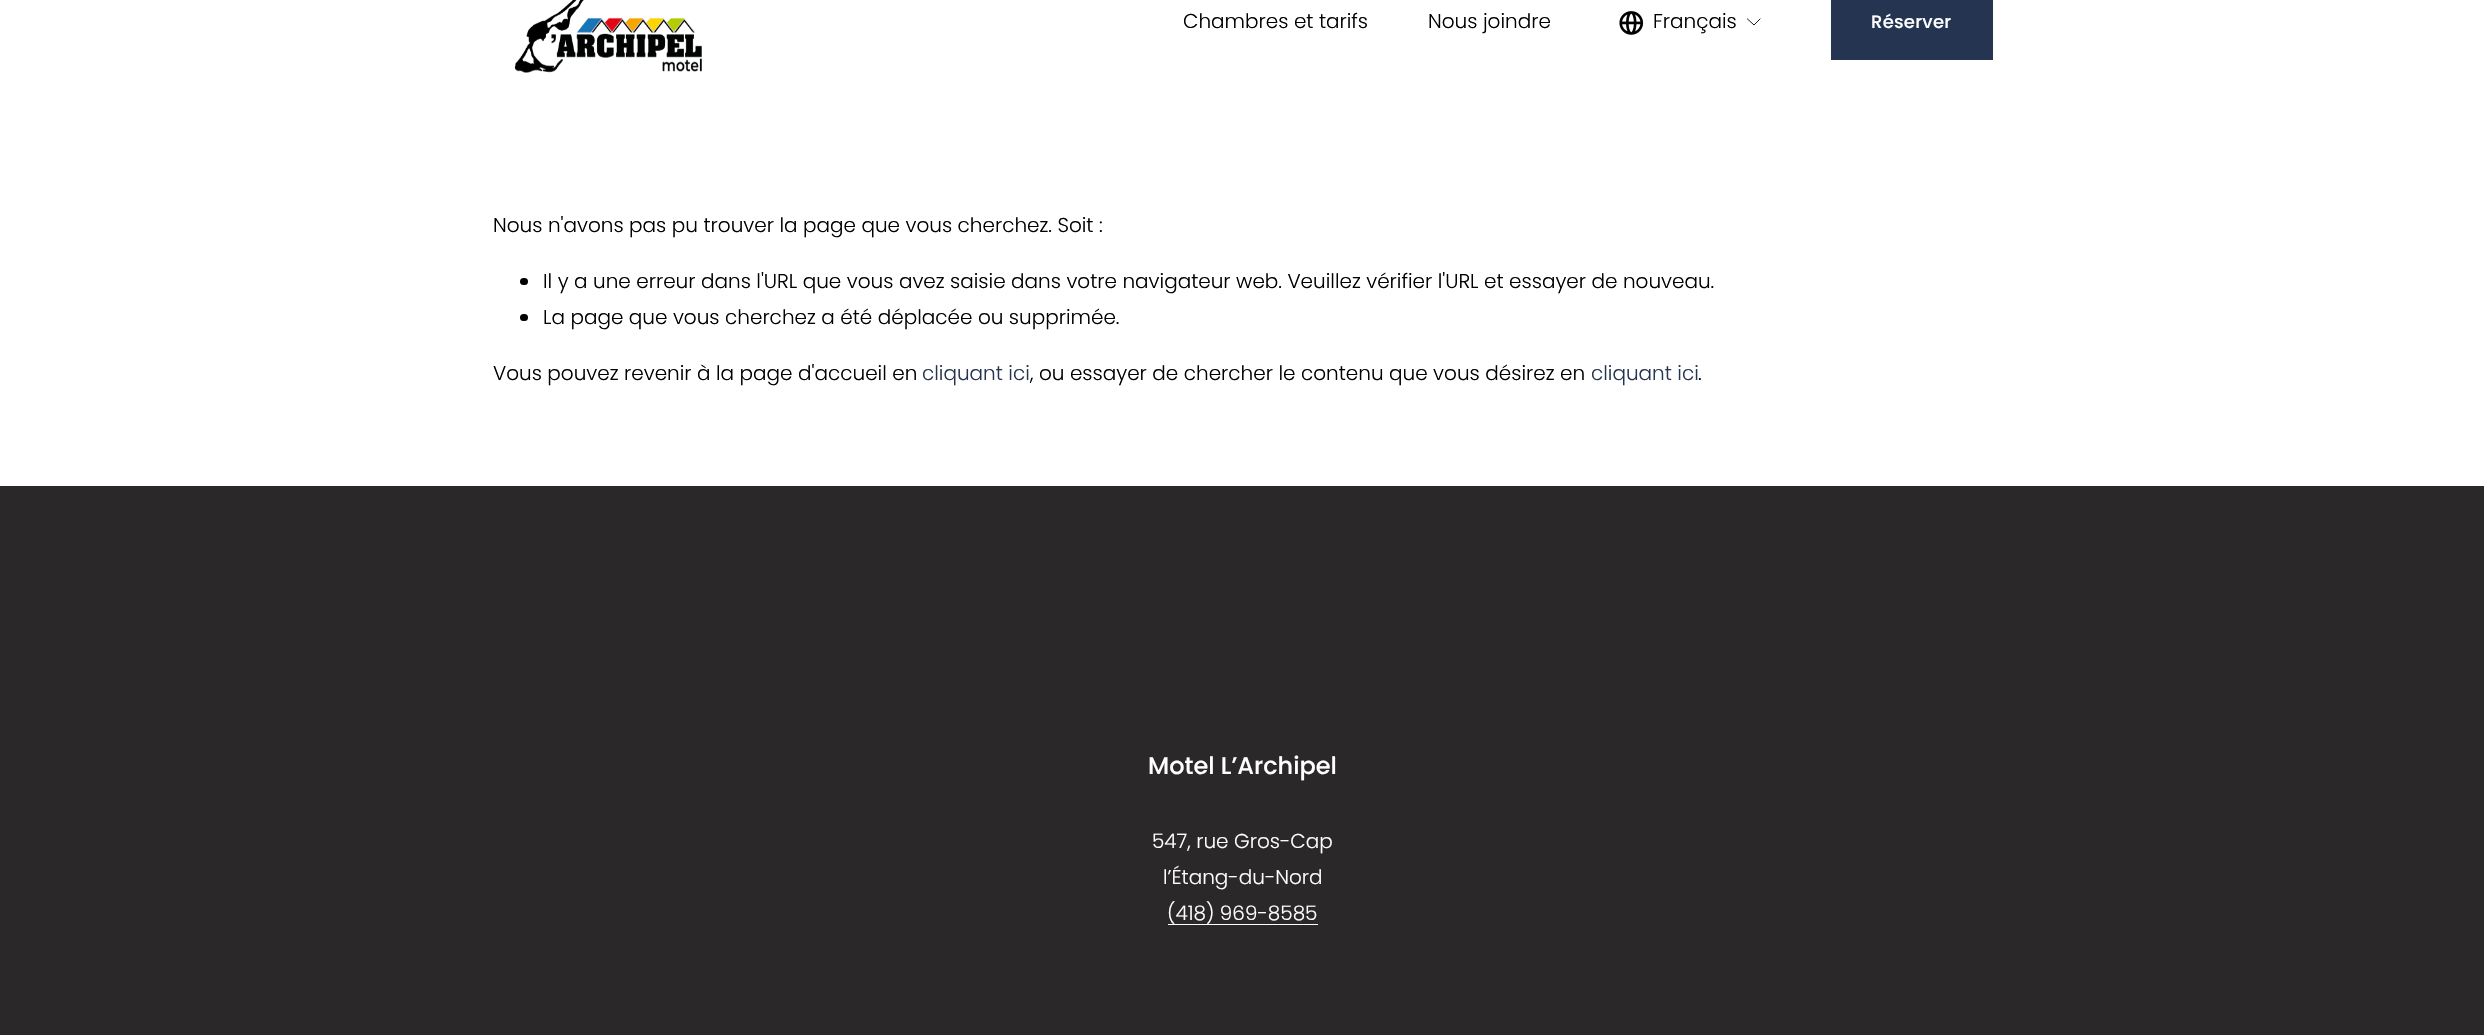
void draw(SkCanvas* canvas) {
    SkPaint paint;
    paint.setAntiAlias(true);
    auto spacedText = [&](const char* s, float x, float y, const SkFont& font, const SkPaint& ink, float letter, float word) {
        std::vector<SkGlyphID> glyphs(font.countText(s, strlen(s), SkTextEncoding::kUTF8));
        std::vector<float> xs(glyphs.size());
        font.textToGlyphs(s, strlen(s), SkTextEncoding::kUTF8, glyphs);
        font.getXPos(glyphs, xs, x);
        float extra = 0;
        for (size_t i = 0; i < glyphs.size(); i++) {
            xs[i] += extra;
            extra += letter + word * (glyphs[i] == font.unicharToGlyph(' '));
        }
        canvas->drawTextBlob(SkTextBlob::MakeFromPosHGlyphs(glyphs, xs, y, font), 0, 0, ink);
    };
    canvas->clear(0xFFFFFFFF);
    canvas->drawImageRect(SkImages::DeferredFromEncodedData(SkData::MakeFromFileName("img1.png")), SkRect::MakeXYWH(514, 0, 188, 73), SkSamplingOptions());
    SkFont font1(fontMgr->matchFamilyStyle("Poppins", SkFontStyle(300, SkFontStyle::kNormal_Width, SkFontStyle::kUpright_Slant)), 20);
    font1.setSubpixel(true);
    paint.setColor(0xFF000000);
    canvas->drawString("Chambres et tarifs", 1183, 28, font1, paint);
    canvas->drawString("Nous joindre", 1428, 28, font1, paint);
    canvas->drawImageRect(SkImages::DeferredFromEncodedData(SkData::MakeFromFileName("img2.png")), SkRect::MakeXYWH(1619, 11, 25, 24), SkSamplingOptions());
    canvas->drawString("Français", 1653, 28, font1, paint);
    paint.setStyle(SkPaint::kStroke_Style);
    paint.setStrokeWidth(0.9f);
    paint.setStrokeCap(SkPaint::kSquare_Cap);
    canvas->drawPath(SkPathBuilder().moveTo(1760, 19).lineTo(1754, 25).lineTo(1747.5f, 19).detach(), paint);
    paint.setStyle(SkPaint::kFill_Style);
    paint.setColor(0xFF253551);
    canvas->drawRect(SkRect::MakeXYWH(1831, 0, 162, 60), paint);
    SkFont font2(fontMgr->matchFamilyStyle("Poppins", SkFontStyle(500, SkFontStyle::kNormal_Width, SkFontStyle::kUpright_Slant)), 18);
    font2.setSubpixel(true);
    paint.setColor(0xFFFFFFFF);
    spacedText("Réserver", 1871, 28, font2, paint, 0.25f, 0);
    paint.setColor(0xFF000000);
    canvas->drawString("Nous n'avons pas pu trouver la page que vous cherchez. Soit :", 493, 232, font1, paint);
    canvas->drawRoundRect(SkRect::MakeXYWH(520, 278, 8, 7), 3.5f, 3.5f, paint);
    canvas->drawString("Il y a une erreur dans l'URL que vous avez saisie dans votre navigateur web. Veuillez vérifier l'URL et essayer de nouveau.", 543, 288, font1, paint);
    canvas->drawRoundRect(SkRect::MakeXYWH(520, 314, 8, 7), 3.5f, 3.5f, paint);
    canvas->drawString("La page que vous cherchez a été déplacée ou supprimée.", 543, 324, font1, paint);
    canvas->drawString("Vous pouvez revenir à la page d'accueil en", 493, 380, font1, paint);
    paint.setColor(0xFF253551);
    canvas->drawString("cliquant ici", 922, 380, font1, paint);
    paint.setColor(0xFF000000);
    canvas->drawString(", ou essayer de chercher le contenu que vous désirez en", 1030, 380, font1, paint);
    paint.setColor(0xFF253551);
    canvas->drawString("cliquant ici", 1591, 380, font1, paint);
    paint.setColor(0xFF000000);
    canvas->drawString(".", 1698, 380, font1, paint);
    paint.setColor(0xFF2A2829);
    canvas->drawRect(SkRect::MakeXYWH(0, 486, 2484, 549), paint);
    SkFont font3(fontMgr->matchFamilyStyle("Poppins", SkFontStyle(500, SkFontStyle::kNormal_Width, SkFontStyle::kUpright_Slant)), 24);
    font3.setSubpixel(true);
    paint.setColor(0xFFFFFFFF);
    canvas->drawString("Motel L’Archipel", 1148, 774, font3, paint);
    canvas->drawString("547, rue Gros-Cap", 1152, 848, font1, paint);
    canvas->drawString("l’Étang-du-Nord", 1163, 884, font1, paint);
    canvas->drawString("(418) 969-8585", 1167, 920, font1, paint);
    canvas->drawRect(SkRect::MakeXYWH(1168, 924, 150, 1), paint);
}
